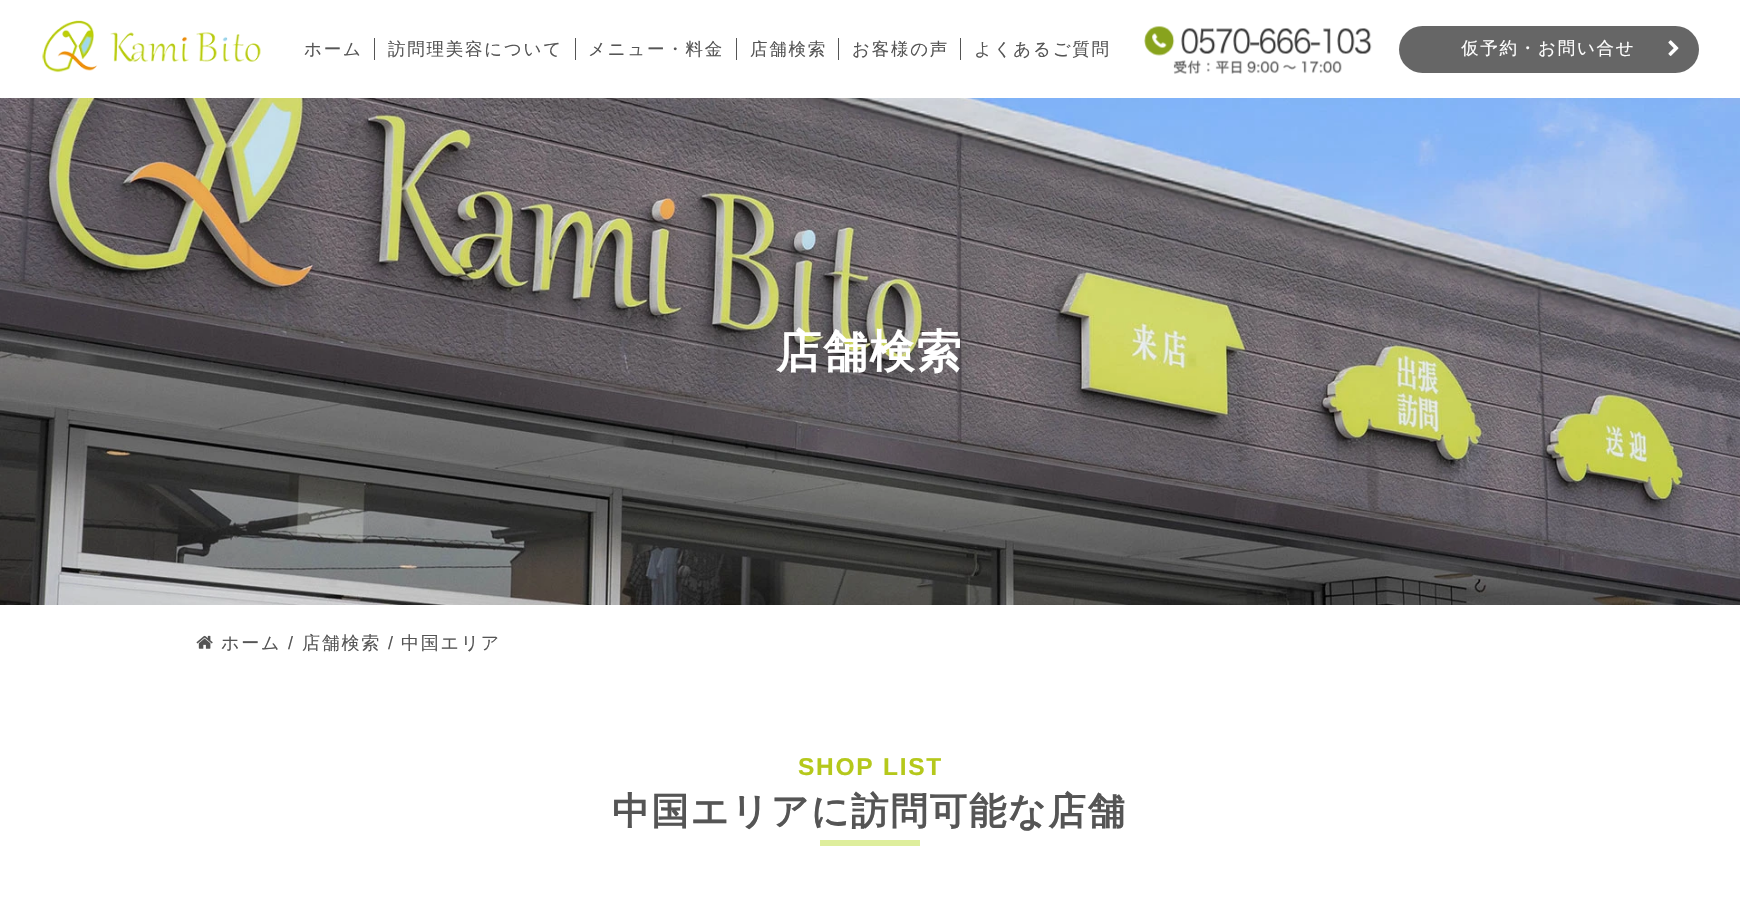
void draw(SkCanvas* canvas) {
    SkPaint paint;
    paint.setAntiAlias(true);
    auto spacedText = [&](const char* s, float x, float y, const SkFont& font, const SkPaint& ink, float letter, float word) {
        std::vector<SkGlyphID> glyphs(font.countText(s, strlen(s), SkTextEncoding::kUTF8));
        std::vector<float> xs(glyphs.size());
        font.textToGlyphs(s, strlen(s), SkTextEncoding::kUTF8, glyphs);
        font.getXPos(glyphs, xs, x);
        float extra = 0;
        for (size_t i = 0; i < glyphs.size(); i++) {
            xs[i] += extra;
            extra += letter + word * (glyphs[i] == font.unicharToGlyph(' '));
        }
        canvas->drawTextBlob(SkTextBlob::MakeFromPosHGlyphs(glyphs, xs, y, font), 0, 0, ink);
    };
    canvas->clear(0xFFFFFFFF);
    canvas->drawImageRect(SkImages::DeferredFromEncodedData(SkData::MakeFromFileName("img1.png")), SkRect::MakeXYWH(42, 20, 219, 53), SkSamplingOptions());
    SkFont font1(fontMgr->matchFamilyStyle("WenQuanYi Zen Hei", SkFontStyle(500, SkFontStyle::kNormal_Width, SkFontStyle::kUpright_Slant)), 17.5f);
    font1.setSubpixel(true);
    paint.setColor(0xFF555555);
    spacedText("ホーム", 304, 55, font1, paint, 1.75f, 0);
    canvas->drawRect(SkRect::MakeXYWH(374, 38, 1, 22), paint);
    spacedText("訪問理美容について", 388, 55, font1, paint, 1.75f, 0);
    canvas->drawRect(SkRect::MakeXYWH(575, 38, 1, 22), paint);
    spacedText("メニュー・料金", 588, 55, font1, paint, 1.75f, 0);
    canvas->drawRect(SkRect::MakeXYWH(736, 38, 1, 22), paint);
    spacedText("店舗検索", 750, 55, font1, paint, 1.75f, 0);
    canvas->drawRect(SkRect::MakeXYWH(838, 38, 1, 22), paint);
    spacedText("お客様の声", 852, 55, font1, paint, 1.75f, 0);
    canvas->drawRect(SkRect::MakeXYWH(960, 38, 1, 22), paint);
    spacedText("よくあるご質問", 974, 55, font1, paint, 1.75f, 0);
    canvas->drawImageRect(SkImages::DeferredFromEncodedData(SkData::MakeFromFileName("img2.png")), SkRect::MakeXYWH(1144, 26, 228, 49), SkSamplingOptions());
    paint.setColor(0xFF666666);
    canvas->drawRoundRect(SkRect::MakeXYWH(1399, 26, 300, 47), 23.5f, 23.5f, paint);
    paint.setColor(0xFFFFFFFF);
    spacedText("仮予約・お問い合せ", 1461, 54, font1, paint, 1.75f, 0);
    canvas->drawImageRect(SkImages::DeferredFromEncodedData(SkData::MakeFromFileName("img3.png")), SkRect::MakeXYWH(1668, 40, 11, 16), SkSamplingOptions());
    canvas->drawImageRect(SkImages::DeferredFromEncodedData(SkData::MakeFromFileName("img4.png")), SkRect::MakeXYWH(0, 98, 1740, 507), SkSamplingOptions());
    SkFont font2(fontMgr->matchFamilyStyle("WenQuanYi Zen Hei", SkFontStyle::Bold()), 45);
    font2.setSubpixel(true);
    spacedText("店舗検索", 776, 367, font2, paint, 1.75f, 0);
    canvas->drawImageRect(SkImages::DeferredFromEncodedData(SkData::MakeFromFileName("img5.png")), SkRect::MakeXYWH(196, 635, 17, 14), SkSamplingOptions());
    SkFont font3(fontMgr->matchFamilyStyle("WenQuanYi Zen Hei", SkFontStyle(500, SkFontStyle::kNormal_Width, SkFontStyle::kUpright_Slant)), 18);
    font3.setSubpixel(true);
    paint.setColor(0xFF555555);
    spacedText("ホーム", 221, 649, font3, paint, 1.75f, 0);
    SkFont font4(fontMgr->matchFamilyStyle("Liberation Sans", SkFontStyle::Normal()), 18);
    font4.setSubpixel(true);
    spacedText("/", 288, 649, font4, paint, 1.75f, 0);
    spacedText("店舗検索", 302, 649, font3, paint, 1.75f, 0);
    spacedText("/", 388, 649, font4, paint, 1.75f, 0);
    spacedText("中国エリア", 401, 649, font3, paint, 1.75f, 0);
    SkFont font5(fontMgr->matchFamilyStyle("Liberation Sans", SkFontStyle::Bold()), 24.5f);
    font5.setSubpixel(true);
    paint.setColor(0xFFB5C81B);
    spacedText("SHOP LIST", 798, 775, font5, paint, 1.75f, 0);
    SkFont font6(fontMgr->matchFamilyStyle("WenQuanYi Zen Hei", SkFontStyle::Bold()), 37.5f);
    font6.setSubpixel(true);
    paint.setColor(0xFF555555);
    spacedText("中国エリアに訪問可能な店舗", 612, 824, font6, paint, 1.75f, 0);
    paint.setColor(0xFFDEEE9C);
    canvas->drawRect(SkRect::MakeXYWH(820, 840, 100, 6), paint);
}
